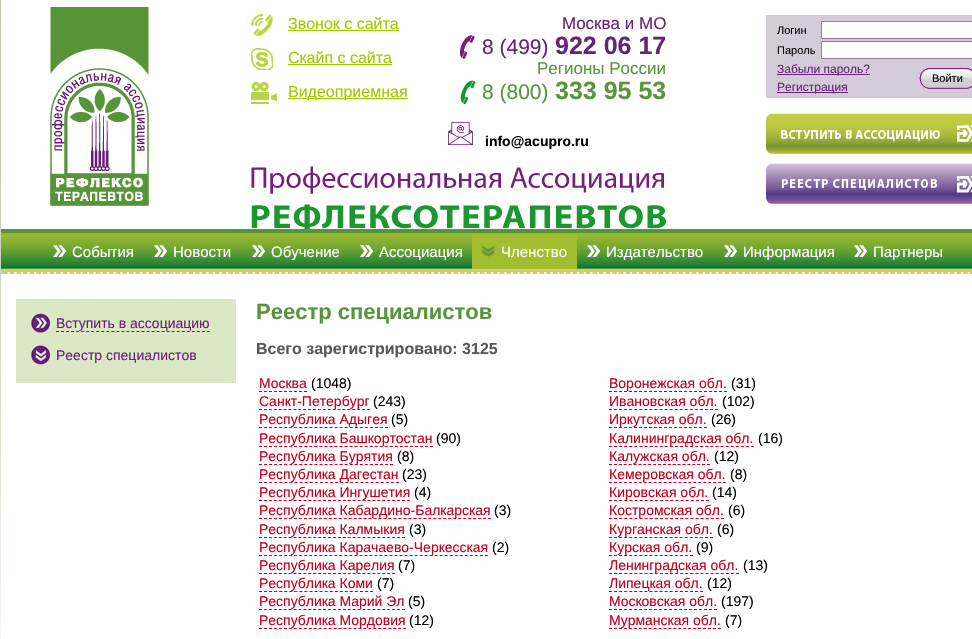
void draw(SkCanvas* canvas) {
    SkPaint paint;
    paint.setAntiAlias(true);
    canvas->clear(0xFFFFFFFF);
    canvas->drawImageRect(SkImages::DeferredFromEncodedData(SkData::MakeFromFileName("img1.png")), SkRect::MakeXYWH(0, 0, 1, 639), SkSamplingOptions());
    canvas->drawImageRect(SkImages::DeferredFromEncodedData(SkData::MakeFromFileName("img2.png")), SkRect::MakeXYWH(50, 7, 99, 199), SkSamplingOptions());
    canvas->drawImageRect(SkImages::DeferredFromEncodedData(SkData::MakeFromFileName("img3.png")), SkRect::MakeXYWH(251, 14, 22, 22), SkSamplingOptions());
    SkFont font1(fontMgr->matchFamilyStyle("Liberation Sans", SkFontStyle::Normal()), 16);
    font1.setSubpixel(true);
    paint.setColor(0xFFA8C600);
    canvas->drawString("Звонок с сайта", 288, 29, font1, paint);
    canvas->drawRect(SkRect::MakeXYWH(288, 30, 111, 1), paint);
    canvas->drawImageRect(SkImages::DeferredFromEncodedData(SkData::MakeFromFileName("img4.png")), SkRect::MakeXYWH(251, 48, 22, 22), SkSamplingOptions());
    canvas->drawString("Скайп с сайта", 288, 63, font1, paint);
    canvas->drawRect(SkRect::MakeXYWH(288, 64, 104, 1), paint);
    canvas->drawImageRect(SkImages::DeferredFromEncodedData(SkData::MakeFromFileName("img5.png")), SkRect::MakeXYWH(251, 82, 26, 22), SkSamplingOptions());
    canvas->drawRect(SkRect::MakeXYWH(288, 98, 120, 1), paint);
    canvas->drawString("Видеоприемная", 288, 97, font1, paint);
    SkFont font2(fontMgr->matchFamilyStyle("Liberation Sans", SkFontStyle::Normal()), 17);
    font2.setSubpixel(true);
    paint.setColor(0xFF662378);
    canvas->drawString("Москва и МО", 562, 29, font2, paint);
    canvas->drawImageRect(SkImages::DeferredFromEncodedData(SkData::MakeFromFileName("img6.png")), SkRect::MakeXYWH(460, 35, 15, 24), SkSamplingOptions());
    SkFont font3(fontMgr->matchFamilyStyle("Liberation Sans", SkFontStyle::Normal()), 21);
    font3.setSubpixel(true);
    canvas->drawString("8 (499)", 482, 54, font3, paint);
    SkFont font4(fontMgr->matchFamilyStyle("Liberation Sans", SkFontStyle::Bold()), 25);
    font4.setSubpixel(true);
    canvas->drawString("922 06 17", 555, 54, font4, paint);
    paint.setColor(0xFF57953B);
    canvas->drawString("Регионы России", 537, 74, font2, paint);
    canvas->drawImageRect(SkImages::DeferredFromEncodedData(SkData::MakeFromFileName("img7.png")), SkRect::MakeXYWH(460, 80, 16, 24), SkSamplingOptions());
    canvas->drawString("8 (800)", 482, 99, font3, paint);
    canvas->drawString("333 95 53", 555, 99, font4, paint);
    canvas->drawImageRect(SkImages::DeferredFromEncodedData(SkData::MakeFromFileName("img8.png")), SkRect::MakeXYWH(448, 121, 25, 25), SkSamplingOptions());
    SkFont font5(fontMgr->matchFamilyStyle("Liberation Sans", SkFontStyle::Bold()), 14);
    font5.setSubpixel(true);
    paint.setColor(0xFF000000);
    canvas->drawString("info@acupro.ru", 485, 146, font5, paint);
    canvas->drawImageRect(SkImages::DeferredFromEncodedData(SkData::MakeFromFileName("img9.png")), SkRect::MakeXYWH(251, 166, 415, 63), SkSamplingOptions());
    paint.setColor(0xFFD5CAD8);
    canvas->drawRect(SkRect::MakeXYWH(766, 15, 206, 83), paint);
    SkFont font6(fontMgr->matchFamilyStyle("Liberation Sans", SkFontStyle::Normal()), 11);
    font6.setSubpixel(true);
    paint.setColor(0xFF000000);
    canvas->drawString("Логин", 777, 34, font6, paint);
    paint.setColor(0xFFFFFFFF);
    canvas->drawRect(SkRect::MakeXYWH(821.5f, 21.5f, 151, 17), paint);
    paint.setStyle(SkPaint::kStroke_Style);
    paint.setStrokeWidth(1);
    paint.setColor(0xFF9D75A8);
    canvas->drawRect(SkRect::MakeXYWH(821.5f, 21.5f, 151, 17), paint);
    paint.setStyle(SkPaint::kFill_Style);
    paint.setColor(0xFF000000);
    canvas->drawString("Пароль", 777, 54, font6, paint);
    paint.setColor(0xFFFFFFFF);
    canvas->drawRect(SkRect::MakeXYWH(821.5f, 41.5f, 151, 17), paint);
    paint.setStyle(SkPaint::kStroke_Style);
    paint.setColor(0xFF9D75A8);
    canvas->drawRect(SkRect::MakeXYWH(821.5f, 41.5f, 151, 17), paint);
    paint.setStyle(SkPaint::kFill_Style);
    paint.setColor(0xFF662378);
    canvas->drawRect(SkRect::MakeXYWH(777, 74, 93, 1), paint);
    SkFont font7(fontMgr->matchFamilyStyle("Liberation Sans", SkFontStyle::Normal()), 12);
    font7.setSubpixel(true);
    canvas->drawString("Забыли пароль?", 777, 73, font7, paint);
    canvas->drawRect(SkRect::MakeXYWH(777, 92, 71, 1), paint);
    canvas->drawString("Регистрация", 777, 91, font7, paint);
    canvas->drawImageRect(SkImages::DeferredFromEncodedData(SkData::MakeFromFileName("img10.png")), SkRect::MakeXYWH(919, 68, 53, 21), SkSamplingOptions());
    paint.setColor(0xFF000000);
    canvas->drawString("Войти", 932, 82, font6, paint);
    canvas->drawImageRect(SkImages::DeferredFromEncodedData(SkData::MakeFromFileName("img11.png")), SkRect::MakeXYWH(766, 113, 206, 41), SkSamplingOptions());
    canvas->drawImageRect(SkImages::DeferredFromEncodedData(SkData::MakeFromFileName("img12.png")), SkRect::MakeXYWH(766, 163, 206, 41), SkSamplingOptions());
    canvas->drawImageRect(SkImages::DeferredFromEncodedData(SkData::MakeFromFileName("img13.png")), SkRect::MakeXYWH(1, 229, 971, 40), SkSamplingOptions());
    canvas->drawImageRect(SkImages::DeferredFromEncodedData(SkData::MakeFromFileName("img14.png")), SkRect::MakeXYWH(53, 245, 13, 12), SkSamplingOptions());
    SkFont font8(fontMgr->matchFamilyStyle("Liberation Sans", SkFontStyle::Normal()), 15);
    font8.setSubpixel(true);
    paint.setColor(0xFFFFFFFF);
    canvas->drawString("События", 72, 257, font8, paint);
    canvas->drawImageRect(SkImages::DeferredFromEncodedData(SkData::MakeFromFileName("img14.png")), SkRect::MakeXYWH(154, 245, 13, 12), SkSamplingOptions());
    canvas->drawString("Новости", 173, 257, font8, paint);
    canvas->drawImageRect(SkImages::DeferredFromEncodedData(SkData::MakeFromFileName("img14.png")), SkRect::MakeXYWH(252, 245, 13, 12), SkSamplingOptions());
    canvas->drawString("Обучение", 271, 257, font8, paint);
    canvas->drawImageRect(SkImages::DeferredFromEncodedData(SkData::MakeFromFileName("img14.png")), SkRect::MakeXYWH(360, 245, 13, 12), SkSamplingOptions());
    canvas->drawString("Ассоциация", 379, 257, font8, paint);
    paint.setColor(0xFFA2BD30);
    canvas->drawRect(SkRect::MakeXYWH(472, 234, 105, 35), paint);
    canvas->drawImageRect(SkImages::DeferredFromEncodedData(SkData::MakeFromFileName("img15.png")), SkRect::MakeXYWH(482, 245, 13, 12), SkSamplingOptions());
    paint.setColor(0xFFFFFFFF);
    canvas->drawString("Членство", 501, 257, font8, paint);
    canvas->drawImageRect(SkImages::DeferredFromEncodedData(SkData::MakeFromFileName("img14.png")), SkRect::MakeXYWH(587, 245, 13, 12), SkSamplingOptions());
    canvas->drawString("Издательство", 606, 257, font8, paint);
    canvas->drawImageRect(SkImages::DeferredFromEncodedData(SkData::MakeFromFileName("img14.png")), SkRect::MakeXYWH(724, 245, 13, 12), SkSamplingOptions());
    canvas->drawString("Информация", 743, 257, font8, paint);
    canvas->drawImageRect(SkImages::DeferredFromEncodedData(SkData::MakeFromFileName("img14.png")), SkRect::MakeXYWH(854, 245, 13, 12), SkSamplingOptions());
    canvas->drawString("Партнеры", 873, 257, font8, paint);
    canvas->drawImageRect(SkImages::DeferredFromEncodedData(SkData::MakeFromFileName("img16.png")), SkRect::MakeXYWH(1, 269, 971, 5), SkSamplingOptions());
    paint.setColor(0xFFDCE7C5);
    canvas->drawRect(SkRect::MakeXYWH(16, 299, 220, 84), paint);
    canvas->drawImageRect(SkImages::DeferredFromEncodedData(SkData::MakeFromFileName("img17.png")), SkRect::MakeXYWH(31, 313, 20, 20), SkSamplingOptions());
    SkFont font9(fontMgr->matchFamilyStyle("Liberation Sans", SkFontStyle::Normal()), 14);
    font9.setSubpixel(true);
    paint.setColor(0xFF662378);
    canvas->drawString("Вступить в ассоциацию", 56, 328, font9, paint);
    paint.setStyle(SkPaint::kStroke_Style);
    paint.setColor(0xFF662078);
    paint.setPathEffect(SkDashPathEffect::Make({{3, 2.03f}}, 0));
    canvas->drawPath(SkPathBuilder().moveTo(56, 331.5f).lineTo(210, 331.5f).detach(), paint);
    paint.setPathEffect(nullptr);
    canvas->drawImageRect(SkImages::DeferredFromEncodedData(SkData::MakeFromFileName("img18.png")), SkRect::MakeXYWH(31, 345, 20, 20), SkSamplingOptions());
    paint.setStyle(SkPaint::kFill_Style);
    paint.setColor(0xFF662378);
    canvas->drawString("Реестр специалистов", 56, 360, font9, paint);
    SkFont font10(fontMgr->matchFamilyStyle("Liberation Sans", SkFontStyle::Bold()), 22);
    font10.setSubpixel(true);
    paint.setColor(0xFF57953B);
    canvas->drawString("Реестр специалистов", 256, 319, font10, paint);
    SkFont font11(fontMgr->matchFamilyStyle("Liberation Sans", SkFontStyle::Bold()), 16);
    font11.setSubpixel(true);
    paint.setColor(0xFF575859);
    canvas->drawString("Всего зарегистрировано: 3125", 256, 354, font11, paint);
    paint.setColor(0xFFC1001F);
    canvas->drawString("Москва", 259, 388, font9, paint);
    paint.setStyle(SkPaint::kStroke_Style);
    paint.setPathEffect(SkDashPathEffect::Make({{3, 2}}, 0));
    canvas->drawPath(SkPathBuilder().moveTo(259, 391.5f).lineTo(307, 391.5f).detach(), paint);
    paint.setPathEffect(nullptr);
    paint.setStyle(SkPaint::kFill_Style);
    paint.setColor(0xFF000000);
    canvas->drawString("(1048)", 311, 388, font9, paint);
    paint.setColor(0xFFC1001F);
    canvas->drawString("Санкт-Петербург", 259, 406, font9, paint);
    paint.setStyle(SkPaint::kStroke_Style);
    paint.setPathEffect(SkDashPathEffect::Make({{3, 1.91f}}, 0));
    canvas->drawPath(SkPathBuilder().moveTo(259, 409.5f).lineTo(370, 409.5f).detach(), paint);
    paint.setPathEffect(nullptr);
    paint.setStyle(SkPaint::kFill_Style);
    paint.setColor(0xFF000000);
    canvas->drawString("(243)", 373, 406, font9, paint);
    paint.setColor(0xFFC1001F);
    canvas->drawString("Республика Адыгея", 259, 424, font9, paint);
    paint.setStyle(SkPaint::kStroke_Style);
    paint.setPathEffect(SkDashPathEffect::Make({{3, 2.04f}}, 0));
    canvas->drawPath(SkPathBuilder().moveTo(259, 427.5f).lineTo(388, 427.5f).detach(), paint);
    paint.setPathEffect(nullptr);
    paint.setStyle(SkPaint::kFill_Style);
    paint.setColor(0xFF000000);
    canvas->drawString("(5)", 391, 424, font9, paint);
    paint.setColor(0xFFC1001F);
    canvas->drawString("Республика Башкортостан", 259, 443, font9, paint);
    paint.setStyle(SkPaint::kStroke_Style);
    paint.setPathEffect(SkDashPathEffect::Make({{3, 2.03f}}, 0));
    canvas->drawPath(SkPathBuilder().moveTo(259, 446.5f).lineTo(433, 446.5f).detach(), paint);
    paint.setPathEffect(nullptr);
    paint.setStyle(SkPaint::kFill_Style);
    paint.setColor(0xFF000000);
    canvas->drawString("(90)", 436, 443, font9, paint);
    paint.setColor(0xFFC1001F);
    canvas->drawString("Республика Бурятия", 259, 461, font9, paint);
    paint.setStyle(SkPaint::kStroke_Style);
    paint.setPathEffect(SkDashPathEffect::Make({{3, 2.04f}}, 0));
    canvas->drawPath(SkPathBuilder().moveTo(259, 464.5f).lineTo(393, 464.5f).detach(), paint);
    paint.setPathEffect(nullptr);
    paint.setStyle(SkPaint::kFill_Style);
    paint.setColor(0xFF000000);
    canvas->drawString("(8)", 397, 461, font9, paint);
    paint.setColor(0xFFC1001F);
    canvas->drawString("Республика Дагестан", 259, 479, font9, paint);
    paint.setStyle(SkPaint::kStroke_Style);
    paint.setPathEffect(SkDashPathEffect::Make({{3, 2.07f}}, 0));
    canvas->drawPath(SkPathBuilder().moveTo(259, 482.5f).lineTo(399, 482.5f).detach(), paint);
    paint.setPathEffect(nullptr);
    paint.setStyle(SkPaint::kFill_Style);
    paint.setColor(0xFF000000);
    canvas->drawString("(23)", 402, 479, font9, paint);
    paint.setColor(0xFFC1001F);
    canvas->drawString("Республика Ингушетия", 259, 497, font9, paint);
    paint.setStyle(SkPaint::kStroke_Style);
    paint.setPathEffect(SkDashPathEffect::Make({{3, 1.93f}}, 0));
    canvas->drawPath(SkPathBuilder().moveTo(259, 500.5f).lineTo(410, 500.5f).detach(), paint);
    paint.setPathEffect(nullptr);
    paint.setStyle(SkPaint::kFill_Style);
    paint.setColor(0xFF000000);
    canvas->drawString("(4)", 414, 497, font9, paint);
    paint.setColor(0xFFC1001F);
    canvas->drawString("Республика Кабардино-Балкарская", 259, 515, font9, paint);
    paint.setStyle(SkPaint::kStroke_Style);
    paint.setPathEffect(SkDashPathEffect::Make({{3, 1.98f}}, 0));
    canvas->drawPath(SkPathBuilder().moveTo(259, 518.5f).lineTo(491, 518.5f).detach(), paint);
    paint.setPathEffect(nullptr);
    paint.setStyle(SkPaint::kFill_Style);
    paint.setColor(0xFF000000);
    canvas->drawString("(3)", 494, 515, font9, paint);
    paint.setColor(0xFFC1001F);
    canvas->drawString("Республика Калмыкия", 259, 534, font9, paint);
    paint.setStyle(SkPaint::kStroke_Style);
    paint.setPathEffect(SkDashPathEffect::Make({{3, 1.93f}}, 0));
    canvas->drawPath(SkPathBuilder().moveTo(259, 537.5f).lineTo(405, 537.5f).detach(), paint);
    paint.setPathEffect(nullptr);
    paint.setStyle(SkPaint::kFill_Style);
    paint.setColor(0xFF000000);
    canvas->drawString("(3)", 409, 534, font9, paint);
    paint.setColor(0xFFC1001F);
    canvas->drawString("Республика Карачаево-Черкесская", 259, 552, font9, paint);
    paint.setStyle(SkPaint::kStroke_Style);
    paint.setPathEffect(SkDashPathEffect::Make({{3, 2.02f}}, 0));
    canvas->drawPath(SkPathBuilder().moveTo(259, 555.5f).lineTo(488, 555.5f).detach(), paint);
    paint.setPathEffect(nullptr);
    paint.setStyle(SkPaint::kFill_Style);
    paint.setColor(0xFF000000);
    canvas->drawString("(2)", 492, 552, font9, paint);
    paint.setColor(0xFFC1001F);
    canvas->drawString("Республика Карелия", 259, 570, font9, paint);
    paint.setStyle(SkPaint::kStroke_Style);
    paint.setPathEffect(SkDashPathEffect::Make({{3, 1.93f}}, 0));
    canvas->drawPath(SkPathBuilder().moveTo(259, 573.5f).lineTo(395, 573.5f).detach(), paint);
    paint.setPathEffect(nullptr);
    paint.setStyle(SkPaint::kFill_Style);
    paint.setColor(0xFF000000);
    canvas->drawString("(7)", 398, 570, font9, paint);
    paint.setColor(0xFFC1001F);
    canvas->drawString("Республика Коми", 259, 588, font9, paint);
    paint.setStyle(SkPaint::kStroke_Style);
    paint.setPathEffect(SkDashPathEffect::Make({{3, 2.05f}}, 0));
    canvas->drawPath(SkPathBuilder().moveTo(259, 591.5f).lineTo(373, 591.5f).detach(), paint);
    paint.setPathEffect(nullptr);
    paint.setStyle(SkPaint::kFill_Style);
    paint.setColor(0xFF000000);
    canvas->drawString("(7)", 377, 588, font9, paint);
    paint.setColor(0xFFC1001F);
    canvas->drawString("Республика Марий Эл", 259, 606, font9, paint);
    paint.setStyle(SkPaint::kStroke_Style);
    paint.setPathEffect(SkDashPathEffect::Make({{3, 1.93f}}, 0));
    canvas->drawPath(SkPathBuilder().moveTo(259, 609.5f).lineTo(405, 609.5f).detach(), paint);
    paint.setPathEffect(nullptr);
    paint.setStyle(SkPaint::kFill_Style);
    paint.setColor(0xFF000000);
    canvas->drawString("(5)", 408, 606, font9, paint);
    paint.setColor(0xFFC1001F);
    canvas->drawString("Республика Мордовия", 259, 625, font9, paint);
    paint.setStyle(SkPaint::kStroke_Style);
    paint.setPathEffect(SkDashPathEffect::Make({{3, 1.97f}}, 0));
    canvas->drawPath(SkPathBuilder().moveTo(259, 628.5f).lineTo(406, 628.5f).detach(), paint);
    paint.setPathEffect(nullptr);
    paint.setStyle(SkPaint::kFill_Style);
    paint.setColor(0xFF000000);
    canvas->drawString("(12)", 409, 625, font9, paint);
    paint.setColor(0xFFC1001F);
    canvas->drawString("Воронежская обл.", 609, 388, font9, paint);
    paint.setStyle(SkPaint::kStroke_Style);
    paint.setPathEffect(SkDashPathEffect::Make({{3, 2}}, 0));
    canvas->drawPath(SkPathBuilder().moveTo(609, 391.5f).lineTo(727, 391.5f).detach(), paint);
    paint.setPathEffect(nullptr);
    paint.setStyle(SkPaint::kFill_Style);
    paint.setColor(0xFF000000);
    canvas->drawString("(31)", 731, 388, font9, paint);
    paint.setColor(0xFFC1001F);
    canvas->drawString("Ивановская обл.", 609, 406, font9, paint);
    paint.setStyle(SkPaint::kStroke_Style);
    paint.setPathEffect(SkDashPathEffect::Make({{3, 2.05f}}, 0));
    canvas->drawPath(SkPathBuilder().moveTo(609, 409.5f).lineTo(718, 409.5f).detach(), paint);
    paint.setPathEffect(nullptr);
    paint.setStyle(SkPaint::kFill_Style);
    paint.setColor(0xFF000000);
    canvas->drawString("(102)", 722, 406, font9, paint);
    paint.setColor(0xFFC1001F);
    canvas->drawString("Иркутская обл.", 609, 424, font9, paint);
    paint.setStyle(SkPaint::kStroke_Style);
    paint.setPathEffect(SkDashPathEffect::Make({{3, 2}}, 0));
    canvas->drawPath(SkPathBuilder().moveTo(609, 427.5f).lineTo(707, 427.5f).detach(), paint);
    paint.setPathEffect(nullptr);
    paint.setStyle(SkPaint::kFill_Style);
    paint.setColor(0xFF000000);
    canvas->drawString("(26)", 711, 424, font9, paint);
    paint.setColor(0xFFC1001F);
    canvas->drawString("Калининградская обл.", 609, 443, font9, paint);
    paint.setStyle(SkPaint::kStroke_Style);
    paint.setPathEffect(SkDashPathEffect::Make({{3, 2.07f}}, 0));
    canvas->drawPath(SkPathBuilder().moveTo(609, 446.5f).lineTo(754, 446.5f).detach(), paint);
    paint.setPathEffect(nullptr);
    paint.setStyle(SkPaint::kFill_Style);
    paint.setColor(0xFF000000);
    canvas->drawString("(16)", 758, 443, font9, paint);
    paint.setColor(0xFFC1001F);
    canvas->drawString("Калужская обл.", 609, 461, font9, paint);
    paint.setStyle(SkPaint::kStroke_Style);
    paint.setPathEffect(SkDashPathEffect::Make({{3, 1.9f}}, 0));
    canvas->drawPath(SkPathBuilder().moveTo(609, 464.5f).lineTo(710, 464.5f).detach(), paint);
    paint.setPathEffect(nullptr);
    paint.setStyle(SkPaint::kFill_Style);
    paint.setColor(0xFF000000);
    canvas->drawString("(12)", 714, 461, font9, paint);
    paint.setColor(0xFFC1001F);
    canvas->drawString("Кемеровская обл.", 609, 479, font9, paint);
    paint.setStyle(SkPaint::kStroke_Style);
    paint.setPathEffect(SkDashPathEffect::Make({{3, 1.96f}}, 0));
    canvas->drawPath(SkPathBuilder().moveTo(609, 482.5f).lineTo(726, 482.5f).detach(), paint);
    paint.setPathEffect(nullptr);
    paint.setStyle(SkPaint::kFill_Style);
    paint.setColor(0xFF000000);
    canvas->drawString("(8)", 730, 479, font9, paint);
    paint.setColor(0xFFC1001F);
    canvas->drawString("Кировская обл.", 609, 497, font9, paint);
    paint.setStyle(SkPaint::kStroke_Style);
    paint.setPathEffect(SkDashPathEffect::Make({{3, 2.11f}}, 0));
    canvas->drawPath(SkPathBuilder().moveTo(609, 500.5f).lineTo(709, 500.5f).detach(), paint);
    paint.setPathEffect(nullptr);
    paint.setStyle(SkPaint::kFill_Style);
    paint.setColor(0xFF000000);
    canvas->drawString("(14)", 712, 497, font9, paint);
    paint.setColor(0xFFC1001F);
    canvas->drawString("Костромская обл.", 609, 515, font9, paint);
    paint.setStyle(SkPaint::kStroke_Style);
    paint.setPathEffect(SkDashPathEffect::Make({{3, 2.09f}}, 0));
    canvas->drawPath(SkPathBuilder().moveTo(609, 518.5f).lineTo(724, 518.5f).detach(), paint);
    paint.setPathEffect(nullptr);
    paint.setStyle(SkPaint::kFill_Style);
    paint.setColor(0xFF000000);
    canvas->drawString("(6)", 728, 515, font9, paint);
    paint.setColor(0xFFC1001F);
    canvas->drawString("Курганская обл.", 609, 534, font9, paint);
    paint.setStyle(SkPaint::kStroke_Style);
    paint.setPathEffect(SkDashPathEffect::Make({{3, 2.05f}}, 0));
    canvas->drawPath(SkPathBuilder().moveTo(609, 537.5f).lineTo(713, 537.5f).detach(), paint);
    paint.setPathEffect(nullptr);
    paint.setStyle(SkPaint::kFill_Style);
    paint.setColor(0xFF000000);
    canvas->drawString("(6)", 717, 534, font9, paint);
    paint.setColor(0xFFC1001F);
    canvas->drawString("Курская обл.", 609, 552, font9, paint);
    paint.setStyle(SkPaint::kStroke_Style);
    paint.setPathEffect(SkDashPathEffect::Make({{3, 2.06f}}, 0));
    canvas->drawPath(SkPathBuilder().moveTo(609, 555.5f).lineTo(693, 555.5f).detach(), paint);
    paint.setPathEffect(nullptr);
    paint.setStyle(SkPaint::kFill_Style);
    paint.setColor(0xFF000000);
    canvas->drawString("(9)", 696, 552, font9, paint);
    paint.setColor(0xFFC1001F);
    canvas->drawString("Ленинградская обл.", 609, 570, font9, paint);
    paint.setStyle(SkPaint::kStroke_Style);
    paint.setPathEffect(SkDashPathEffect::Make({{3, 2.08f}}, 0));
    canvas->drawPath(SkPathBuilder().moveTo(609, 573.5f).lineTo(739, 573.5f).detach(), paint);
    paint.setPathEffect(nullptr);
    paint.setStyle(SkPaint::kFill_Style);
    paint.setColor(0xFF000000);
    canvas->drawString("(13)", 743, 570, font9, paint);
    paint.setColor(0xFFC1001F);
    canvas->drawString("Липецкая обл.", 609, 588, font9, paint);
    paint.setStyle(SkPaint::kStroke_Style);
    paint.setPathEffect(SkDashPathEffect::Make({{3, 2.06f}}, 0));
    canvas->drawPath(SkPathBuilder().moveTo(609, 591.5f).lineTo(703, 591.5f).detach(), paint);
    paint.setPathEffect(nullptr);
    paint.setStyle(SkPaint::kFill_Style);
    paint.setColor(0xFF000000);
    canvas->drawString("(12)", 707, 588, font9, paint);
    paint.setColor(0xFFC1001F);
    canvas->drawString("Московская обл.", 609, 606, font9, paint);
    paint.setStyle(SkPaint::kStroke_Style);
    paint.setPathEffect(SkDashPathEffect::Make({{3, 2}}, 0));
    canvas->drawPath(SkPathBuilder().moveTo(609, 609.5f).lineTo(717, 609.5f).detach(), paint);
    paint.setPathEffect(nullptr);
    paint.setStyle(SkPaint::kFill_Style);
    paint.setColor(0xFF000000);
    canvas->drawString("(197)", 721, 606, font9, paint);
    paint.setColor(0xFFC1001F);
    canvas->drawString("Мурманская обл.", 609, 625, font9, paint);
    paint.setStyle(SkPaint::kStroke_Style);
    paint.setPathEffect(SkDashPathEffect::Make({{3, 1.95f}}, 0));
    canvas->drawPath(SkPathBuilder().moveTo(609, 628.5f).lineTo(721, 628.5f).detach(), paint);
    paint.setPathEffect(nullptr);
    paint.setStyle(SkPaint::kFill_Style);
    paint.setColor(0xFF000000);
    canvas->drawString("(7)", 725, 625, font9, paint);
}
